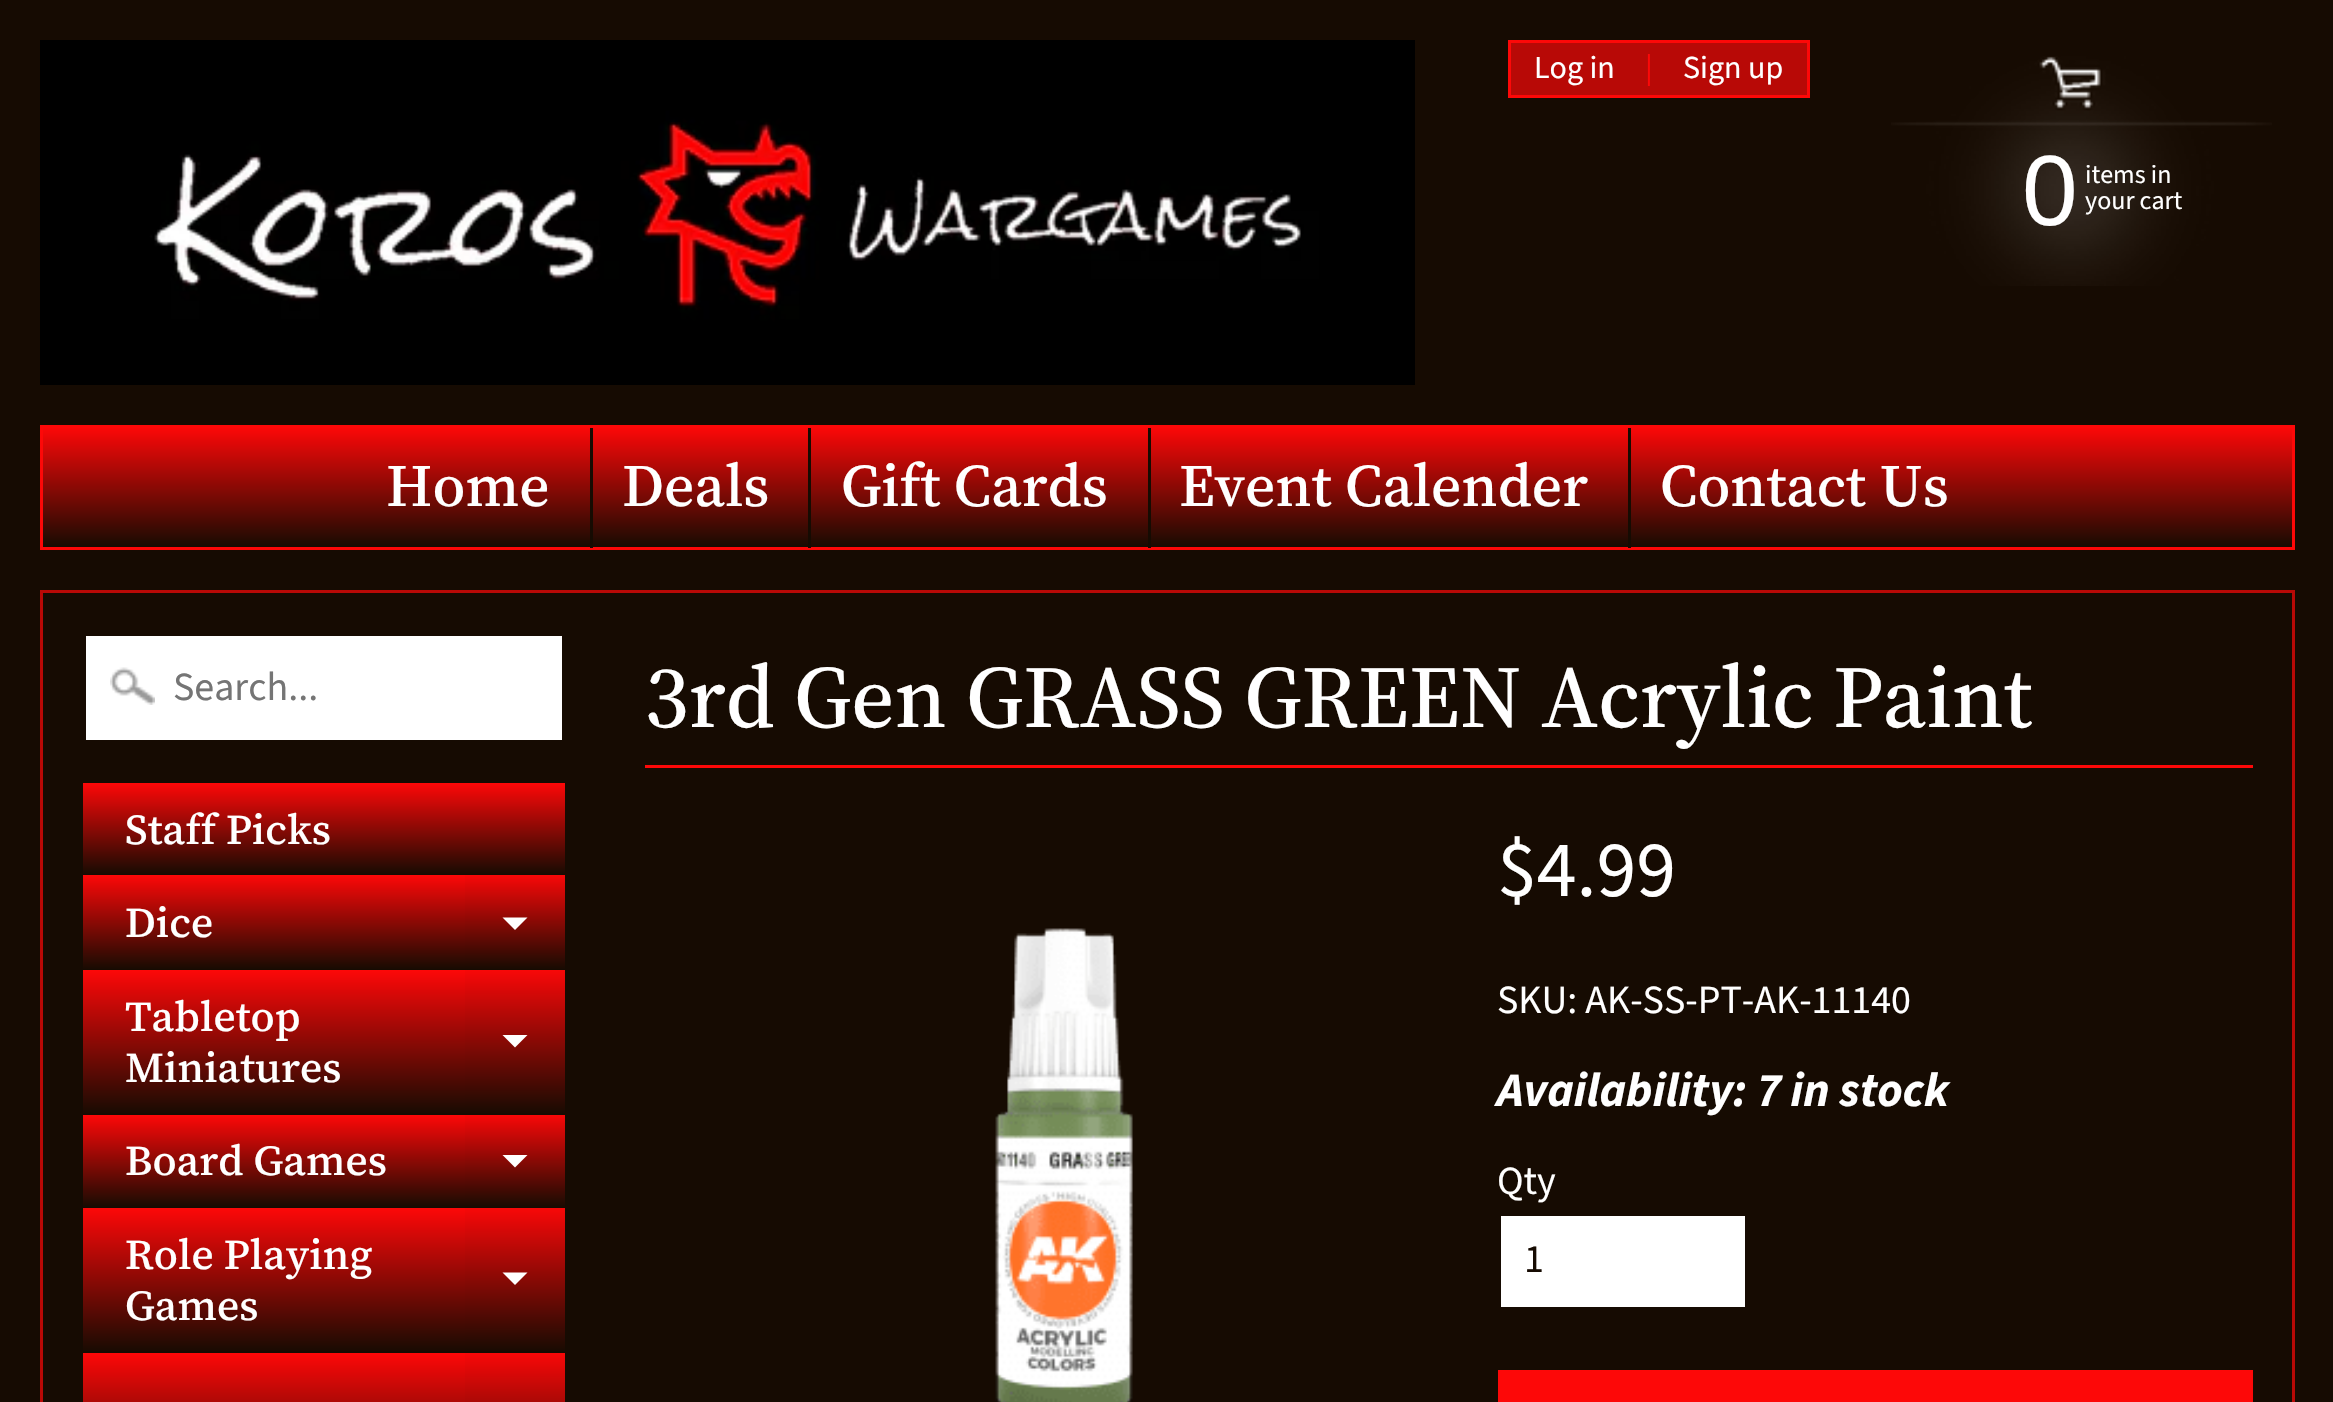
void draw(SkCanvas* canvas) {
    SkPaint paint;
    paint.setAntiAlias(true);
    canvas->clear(0xFF160B02);
    canvas->drawImageRect(SkImages::DeferredFromEncodedData(SkData::MakeFromFileName("img1.png")), SkRect::MakeXYWH(40, 40, 1375, 345), SkSamplingOptions());
    paint.setColor(0xFFB80906);
    canvas->drawRect(SkRect::MakeXYWH(1509.5f, 41.5f, 299, 55), paint);
    paint.setStyle(SkPaint::kStroke_Style);
    paint.setStrokeWidth(3);
    paint.setColor(0xFFFD0808);
    canvas->drawRect(SkRect::MakeXYWH(1509.5f, 41.5f, 299, 55), paint);
    SkFont font1(fontMgr->matchFamilyStyle("Source Sans Pro", SkFontStyle::Normal()), 32);
    font1.setSubpixel(true);
    paint.setStyle(SkPaint::kFill_Style);
    paint.setColor(0xFFFFFFFF);
    canvas->drawString("Log in", 1534, 78, font1, paint);
    paint.setColor(0xFFFD0808);
    canvas->drawString("|", 1645, 78, font1, paint);
    paint.setColor(0xFFFFFFFF);
    canvas->drawString("Sign up", 1683, 78, font1, paint);
    canvas->drawImageRect(SkImages::DeferredFromEncodedData(SkData::MakeFromFileName("img2.png")), SkRect::MakeXYWH(1891, 56, 381, 230), SkSamplingOptions());
    SkFont font2(fontMgr->matchFamilyStyle("Liberation Sans", SkFontStyle::Normal()), 100);
    font2.setSubpixel(true);
    canvas->drawString("0", 2022, 225, font2, paint);
    SkFont font3(fontMgr->matchFamilyStyle("Source Sans Pro", SkFontStyle::Normal()), 26);
    font3.setSubpixel(true);
    canvas->drawString("items in", 2085, 183, font3, paint);
    canvas->drawString("your cart", 2085, 209, font3, paint);
    {
        const SkColor colors[] = {0xFFFD0808, 0xFF160B02};
        const float stops[] = {0, 1};
        const SkPoint ends[] = {{1168, 427}, {1168, 548}};
        paint.setShader(SkGradientShader::MakeLinear(ends, colors, stops, 2, SkTileMode::kClamp));
        paint.setAlpha(255);
    }
    canvas->drawRect(SkRect::MakeXYWH(43, 428, 2249, 119), paint);
    paint.setStyle(SkPaint::kStroke_Style);
    paint.setShader(nullptr);
    paint.setColor(0xFFFD0808);
    canvas->drawRect(SkRect::MakeXYWH(41.5f, 426.5f, 2252, 122), paint);
    SkFont font4(fontMgr->matchFamilyStyle("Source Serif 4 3", SkFontStyle(500, SkFontStyle::kNormal_Width, SkFontStyle::kUpright_Slant)), 60);
    font4.setSubpixel(true);
    paint.setStyle(SkPaint::kFill_Style);
    paint.setColor(0xFFFFFFFF);
    canvas->drawString("Home", 386, 506, font4, paint);
    paint.setColor(0xFF160B02);
    canvas->drawRect(SkRect::MakeXYWH(590, 428, 3, 120), paint);
    paint.setColor(0xFFFFFFFF);
    canvas->drawString("Deals", 622, 506, font4, paint);
    paint.setColor(0xFF160B02);
    canvas->drawRect(SkRect::MakeXYWH(808, 428, 3, 120), paint);
    paint.setColor(0xFFFFFFFF);
    canvas->drawString("Gift Cards", 841, 506, font4, paint);
    paint.setColor(0xFF160B02);
    canvas->drawRect(SkRect::MakeXYWH(1148, 428, 3, 120), paint);
    paint.setColor(0xFFFFFFFF);
    canvas->drawString("Event Calender", 1179, 506, font4, paint);
    paint.setColor(0xFF160B02);
    canvas->drawRect(SkRect::MakeXYWH(1628, 428, 3, 120), paint);
    paint.setColor(0xFFFFFFFF);
    canvas->drawString("Contact Us", 1660, 506, font4, paint);
    paint.setStyle(SkPaint::kStroke_Style);
    paint.setColor(0xFFB80906);
    canvas->drawRect(SkRect::MakeXYWH(41.5f, 591.5f, 2252, 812), paint);
    paint.setStyle(SkPaint::kFill_Style);
    paint.setColor(0xFFFFFFFF);
    canvas->drawRect(SkRect::MakeXYWH(86, 636, 476, 104), paint);
    canvas->drawImageRect(SkImages::DeferredFromEncodedData(SkData::MakeFromFileName("img3.png")), SkRect::MakeXYWH(110, 667, 45, 38), SkSamplingOptions());
    SkFont font5(fontMgr->matchFamilyStyle("Source Sans Pro", SkFontStyle::Normal()), 40);
    font5.setSubpixel(true);
    paint.setColor(0xFF757575);
    canvas->drawString("Search...", 173, 700, font5, paint);
    {
        const SkColor colors[] = {0xFFFD0808, 0xFF160B02};
        const float stops[] = {0, 1};
        const SkPoint ends[] = {{324, 783}, {324, 875}};
        paint.setShader(SkGradientShader::MakeLinear(ends, colors, stops, 2, SkTileMode::kClamp));
        paint.setAlpha(255);
    }
    canvas->drawRect(SkRect::MakeXYWH(83, 783, 482, 91), paint);
    SkFont font6(fontMgr->matchFamilyStyle("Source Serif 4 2", SkFontStyle(500, SkFontStyle::kNormal_Width, SkFontStyle::kUpright_Slant)), 42.5f);
    font6.setSubpixel(true);
    paint.setShader(nullptr);
    paint.setColor(0xFFFFFFFF);
    canvas->drawString("Staff Picks", 125, 844, font6, paint);
    {
        const SkColor colors[] = {0xFFFD0808, 0xFF160B02};
        const float stops[] = {0, 1};
        const SkPoint ends[] = {{324, 875}, {324, 970}};
        paint.setShader(SkGradientShader::MakeLinear(ends, colors, stops, 2, SkTileMode::kClamp));
        paint.setAlpha(255);
    }
    canvas->drawRect(SkRect::MakeXYWH(83, 875, 382, 94), paint);
    {
        const SkColor colors[] = {0xFFF80808, 0xFF160B02};
        const float stops[] = {0, 1};
        const SkPoint ends[] = {{324, 875}, {324, 970}};
        paint.setShader(SkGradientShader::MakeLinear(ends, colors, stops, 2, SkTileMode::kClamp));
        paint.setAlpha(255);
    }
    canvas->drawRect(SkRect::MakeXYWH(465, 875, 100, 94), paint);
    paint.setShader(nullptr);
    paint.setColor(0xFFFFFFFF);
    canvas->drawString("Dice", 125, 937, font6, paint);
    canvas->drawPath(SkPathBuilder().moveTo(502.5f, 917.5f).lineTo(527.5f, 917.5f).lineTo(515, 930).close().detach(), paint);
    {
        const SkColor colors[] = {0xFFFD0808, 0xFF160B02};
        const float stops[] = {0, 1};
        const SkPoint ends[] = {{324, 970}, {324, 1115}};
        paint.setShader(SkGradientShader::MakeLinear(ends, colors, stops, 2, SkTileMode::kClamp));
        paint.setAlpha(255);
    }
    canvas->drawRect(SkRect::MakeXYWH(83, 970, 382, 143), paint);
    {
        const SkColor colors[] = {0xFFF80808, 0xFF160B02};
        const float stops[] = {0, 1};
        const SkPoint ends[] = {{324, 970}, {324, 1115}};
        paint.setShader(SkGradientShader::MakeLinear(ends, colors, stops, 2, SkTileMode::kClamp));
        paint.setAlpha(255);
    }
    canvas->drawRect(SkRect::MakeXYWH(465, 970, 100, 143), paint);
    paint.setShader(nullptr);
    paint.setColor(0xFFFFFFFF);
    canvas->drawString("Tabletop", 125, 1031, font6, paint);
    canvas->drawPath(SkPathBuilder().moveTo(502.5f, 1035).lineTo(527.5f, 1035).lineTo(515, 1047.5f).close().detach(), paint);
    canvas->drawString("Miniatures", 125, 1082, font6, paint);
    {
        const SkColor colors[] = {0xFFFD0808, 0xFF160B02};
        const float stops[] = {0, 1};
        const SkPoint ends[] = {{324, 1115}, {324, 1208}};
        paint.setShader(SkGradientShader::MakeLinear(ends, colors, stops, 2, SkTileMode::kClamp));
        paint.setAlpha(255);
    }
    canvas->drawRect(SkRect::MakeXYWH(83, 1115, 382, 92), paint);
    {
        const SkColor colors[] = {0xFFF80808, 0xFF160B02};
        const float stops[] = {0, 1};
        const SkPoint ends[] = {{324, 1115}, {324, 1208}};
        paint.setShader(SkGradientShader::MakeLinear(ends, colors, stops, 2, SkTileMode::kClamp));
        paint.setAlpha(255);
    }
    canvas->drawRect(SkRect::MakeXYWH(465, 1115, 100, 92), paint);
    paint.setShader(nullptr);
    paint.setColor(0xFFFFFFFF);
    canvas->drawString("Board Games", 125, 1175, font6, paint);
    canvas->drawPath(SkPathBuilder().moveTo(502.5f, 1155).lineTo(527.5f, 1155).lineTo(515, 1167.5f).close().detach(), paint);
    {
        const SkColor colors[] = {0xFFFD0808, 0xFF160B02};
        const float stops[] = {0, 1};
        const SkPoint ends[] = {{324, 1208}, {324, 1353}};
        paint.setShader(SkGradientShader::MakeLinear(ends, colors, stops, 2, SkTileMode::kClamp));
        paint.setAlpha(255);
    }
    canvas->drawRect(SkRect::MakeXYWH(83, 1208, 382, 143), paint);
    {
        const SkColor colors[] = {0xFFF80808, 0xFF160B02};
        const float stops[] = {0, 1};
        const SkPoint ends[] = {{324, 1208}, {324, 1353}};
        paint.setShader(SkGradientShader::MakeLinear(ends, colors, stops, 2, SkTileMode::kClamp));
        paint.setAlpha(255);
    }
    canvas->drawRect(SkRect::MakeXYWH(465, 1208, 100, 143), paint);
    paint.setShader(nullptr);
    paint.setColor(0xFFFFFFFF);
    canvas->drawString("Role Playing", 125, 1269, font6, paint);
    canvas->drawPath(SkPathBuilder().moveTo(502.5f, 1272.5f).lineTo(527.5f, 1272.5f).lineTo(515, 1285).close().detach(), paint);
    canvas->drawString("Games", 125, 1320, font6, paint);
    {
        const SkColor colors[] = {0xFFFD0808, 0xFF160B02};
        const float stops[] = {0, 1};
        const SkPoint ends[] = {{324, 1353}, {324, 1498}};
        paint.setShader(SkGradientShader::MakeLinear(ends, colors, stops, 2, SkTileMode::kClamp));
        paint.setAlpha(255);
    }
    canvas->drawRect(SkRect::MakeXYWH(83, 1353, 382, 49), paint);
    {
        const SkColor colors[] = {0xFFF80808, 0xFF160B02};
        const float stops[] = {0, 1};
        const SkPoint ends[] = {{324, 1353}, {324, 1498}};
        paint.setShader(SkGradientShader::MakeLinear(ends, colors, stops, 2, SkTileMode::kClamp));
        paint.setAlpha(255);
    }
    canvas->drawRect(SkRect::MakeXYWH(465, 1353, 100, 49), paint);
    paint.setShader(nullptr);
    paint.setColor(0xFFFD0808);
    canvas->drawRect(SkRect::MakeXYWH(645, 765, 1608, 3), paint);
    SkFont font7(fontMgr->matchFamilyStyle("Source Serif 4", SkFontStyle(500, SkFontStyle::kNormal_Width, SkFontStyle::kUpright_Slant)), 88);
    font7.setSubpixel(true);
    paint.setColor(0xFFFFFFFF);
    canvas->drawString("3rd Gen GRASS GREEN Acrylic Paint", 645, 727, font7, paint);
    canvas->drawImageRect(SkImages::DeferredFromEncodedData(SkData::MakeFromFileName("img4.png")), SkRect::MakeXYWH(995, 928, 138, 474), SkSamplingOptions());
    SkFont font8(fontMgr->matchFamilyStyle("Source Sans Pro", SkFontStyle::Normal()), 80);
    font8.setSubpixel(true);
    canvas->drawString("$4.99", 1497, 896, font8, paint);
    canvas->drawString("SKU: AK-SS-PT-AK-11140", 1497, 1013, font5, paint);
    SkFont font9(fontMgr->matchFamilyStyle("Source Sans Pro", SkFontStyle::BoldItalic()), 48);
    font9.setSubpixel(true);
    canvas->drawString("Availability: 7 in stock", 1497, 1106, font9, paint);
    canvas->drawString("Qty", 1497, 1194, font5, paint);
    canvas->drawRect(SkRect::MakeXYWH(1501, 1216, 244, 91), paint);
    paint.setColor(0xFF160B02);
    canvas->drawString("1", 1524, 1272, font5, paint);
    paint.setColor(0xFFFD0808);
    canvas->drawRect(SkRect::MakeXYWH(1498, 1370, 755, 32), paint);
}
